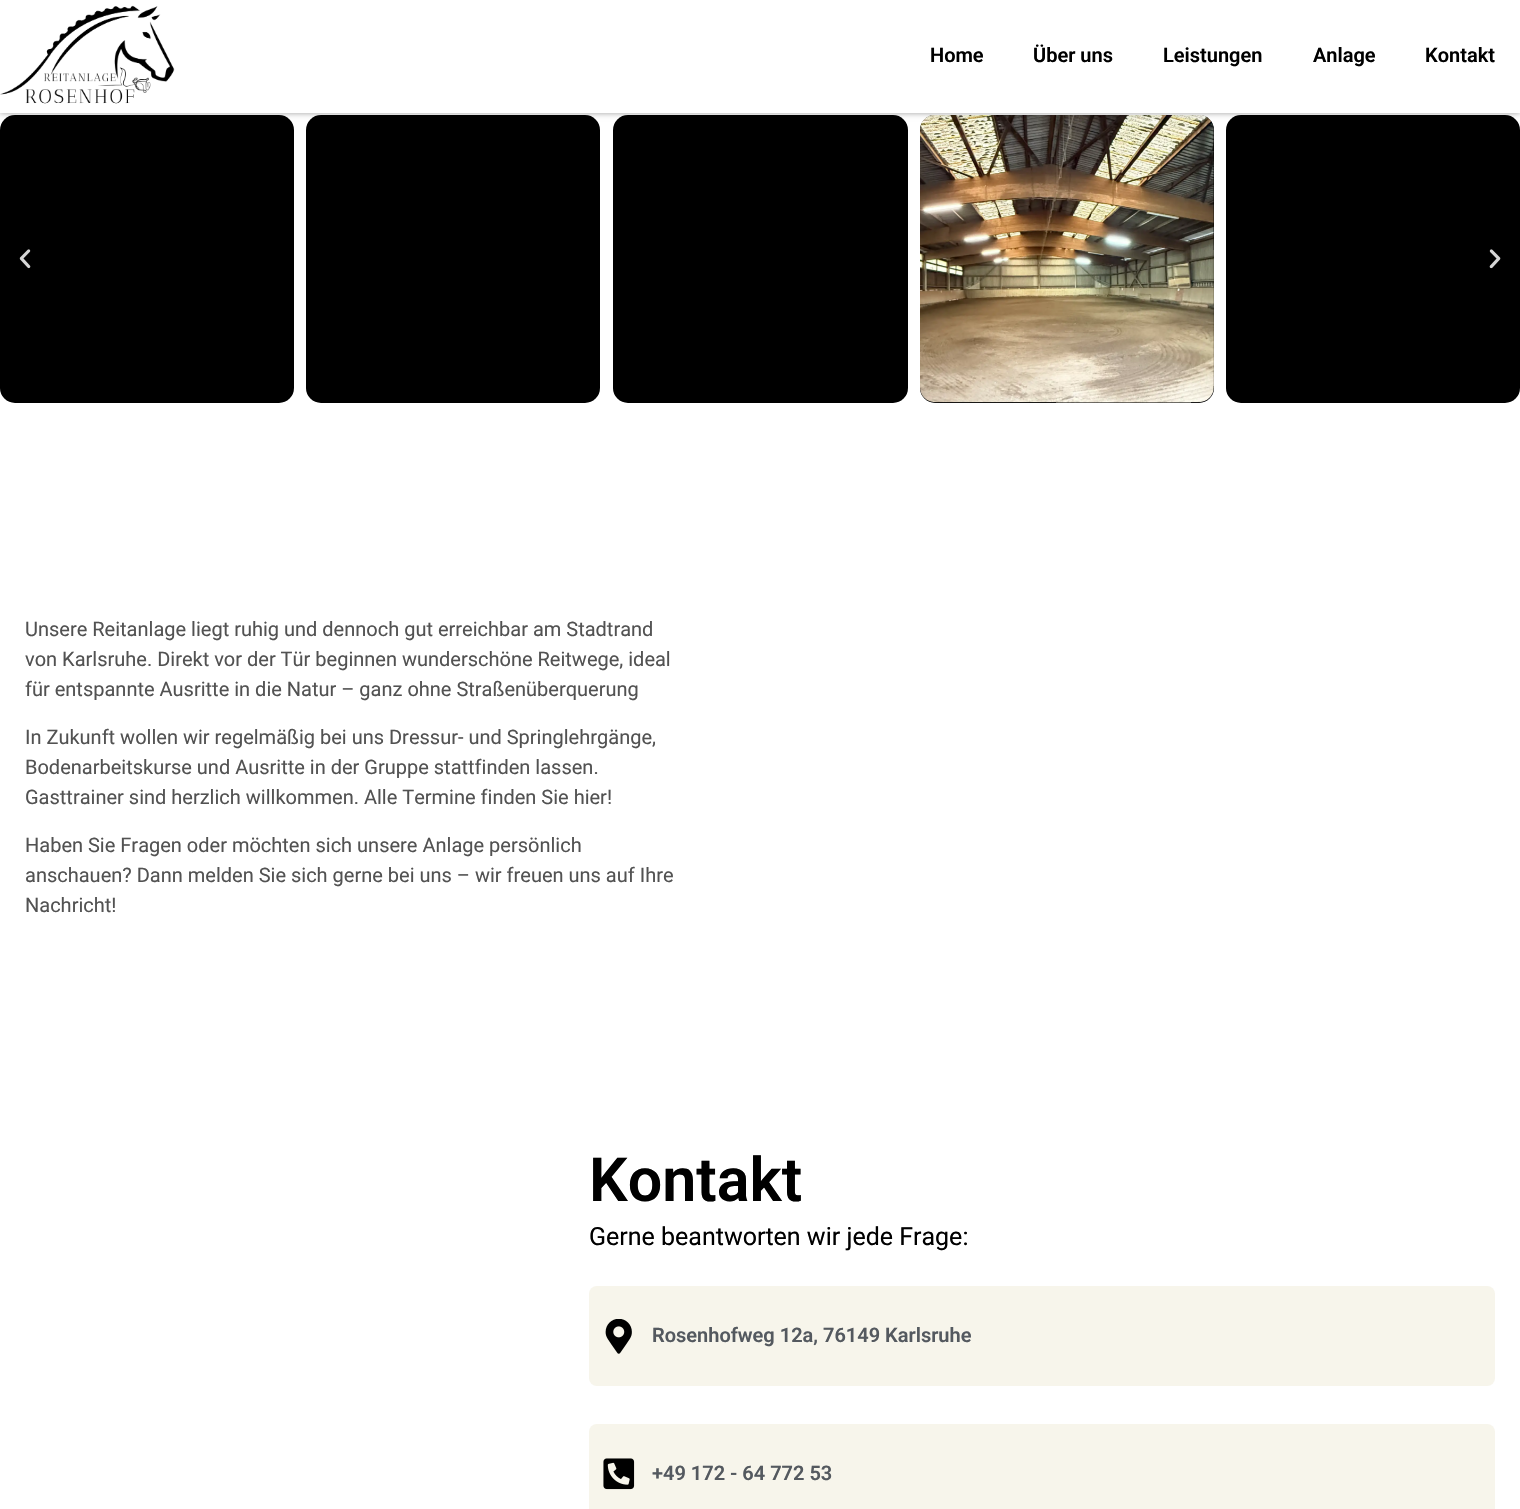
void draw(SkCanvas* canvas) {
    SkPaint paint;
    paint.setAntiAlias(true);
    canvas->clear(0xFFFFFFFF);
    paint.setColor(0xFF000000);
    canvas->drawRoundRect(SkRect::MakeXYWH(0, 115, 294, 288), 15, 15, paint);
    canvas->drawRoundRect(SkRect::MakeXYWH(306, 115, 294, 288), 15, 15, paint);
    canvas->drawRoundRect(SkRect::MakeXYWH(613, 115, 295, 288), 15, 15, paint);
    canvas->drawRoundRect(SkRect::MakeXYWH(920, 115, 294, 288), 15, 15, paint);
    canvas->drawImageRect(SkImages::DeferredFromEncodedData(SkData::MakeFromFileName("img2.png")), SkRect::MakeXYWH(920, 115, 294, 288), SkSamplingOptions());
    canvas->drawRoundRect(SkRect::MakeXYWH(1226, 115, 294, 288), 15, 15, paint);
    paint.setColor(0x61000000);
    paint.setMaskFilter(SkMaskFilter::MakeBlur(kNormal_SkBlurStyle, 3));
    canvas->drawRect(SkRect::MakeXYWH(0, 0, 1520, 113), paint);
    paint.setMaskFilter(nullptr);
    paint.setColor(0xFFFFFFFF);
    canvas->drawRect(SkRect::MakeXYWH(0, 0, 1520, 113), paint);
    canvas->drawImageRect(SkImages::DeferredFromEncodedData(SkData::MakeFromFileName("img1.png")), SkRect::MakeXYWH(0, 5, 175, 99), SkSamplingOptions());
    SkFont font1(fontMgr->matchFamilyStyle("Roboto", SkFontStyle(600, SkFontStyle::kNormal_Width, SkFontStyle::kUpright_Slant)), 20);
    font1.setSubpixel(true);
    paint.setColor(0xFF000000);
    canvas->drawString("Home", 930, 62, font1, paint);
    canvas->drawString("Über uns", 1033, 62, font1, paint);
    canvas->drawString("Leistungen", 1163, 62, font1, paint);
    canvas->drawString("Anlage", 1313, 62, font1, paint);
    canvas->drawString("Kontakt", 1425, 62, font1, paint);
    canvas->drawImageRect(SkImages::DeferredFromEncodedData(SkData::MakeFromFileName("img3.png")), SkRect::MakeXYWH(19, 249, 12, 20), SkSamplingOptions());
    canvas->drawImageRect(SkImages::DeferredFromEncodedData(SkData::MakeFromFileName("img4.png")), SkRect::MakeXYWH(1489, 249, 12, 20), SkSamplingOptions());
    SkFont font2(fontMgr->matchFamilyStyle("Roboto", SkFontStyle::Normal()), 20);
    font2.setSubpixel(true);
    paint.setColor(0xFF525252);
    canvas->drawString("Unsere Reitanlage liegt ruhig und dennoch gut erreichbar am Stadtrand", 25, 636, font2, paint);
    canvas->drawString("von Karlsruhe. Direkt vor der Tür beginnen wunderschöne Reitwege, ideal", 25, 666, font2, paint);
    canvas->drawString("für entspannte Ausritte in die Natur – ganz ohne Straßenüberquerung", 25, 696, font2, paint);
    canvas->drawString("In Zukunft wollen wir regelmäßig bei uns Dressur- und Springlehrgänge,", 25, 744, font2, paint);
    canvas->drawString("Bodenarbeitskurse und Ausritte in der Gruppe stattfinden lassen.", 25, 774, font2, paint);
    canvas->drawString("Gasttrainer sind herzlich willkommen. Alle Termine finden Sie hier!", 25, 804, font2, paint);
    canvas->drawString("Haben Sie Fragen oder möchten sich unsere Anlage persönlich", 25, 852, font2, paint);
    canvas->drawString("anschauen? Dann melden Sie sich gerne bei uns – wir freuen uns auf Ihre", 25, 882, font2, paint);
    canvas->drawString("Nachricht!", 25, 912, font2, paint);
    SkFont font3(fontMgr->matchFamilyStyle("Roboto", SkFontStyle(600, SkFontStyle::kNormal_Width, SkFontStyle::kUpright_Slant)), 61);
    font3.setSubpixel(true);
    paint.setColor(0xFF000000);
    canvas->drawString("Kontakt", 589, 1201, font3, paint);
    SkFont font4(fontMgr->matchFamilyStyle("Roboto", SkFontStyle::Normal()), 25);
    font4.setSubpixel(true);
    canvas->drawString("Gerne beantworten wir jede Frage:", 589, 1245, font4, paint);
    paint.setColor(0xFFF7F5EB);
    canvas->drawRoundRect(SkRect::MakeXYWH(589, 1286, 906, 100), 8, 8, paint);
    canvas->drawImageRect(SkImages::DeferredFromEncodedData(SkData::MakeFromFileName("img5.png")), SkRect::MakeXYWH(605, 1319, 27, 35), SkSamplingOptions());
    paint.setColor(0xFF54595F);
    canvas->drawString("Rosenhofweg 12a, 76149 Karlsruhe", 652, 1342, font1, paint);
    paint.setColor(0xFFF7F5EB);
    canvas->drawRoundRect(SkRect::MakeXYWH(589, 1424, 906, 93), 8, 8, paint);
    canvas->drawImageRect(SkImages::DeferredFromEncodedData(SkData::MakeFromFileName("img6.png")), SkRect::MakeXYWH(603, 1458, 32, 32), SkSamplingOptions());
    paint.setColor(0xFF54595F);
    canvas->drawString("+49 172 - 64 772 53", 652, 1480, font1, paint);
}
